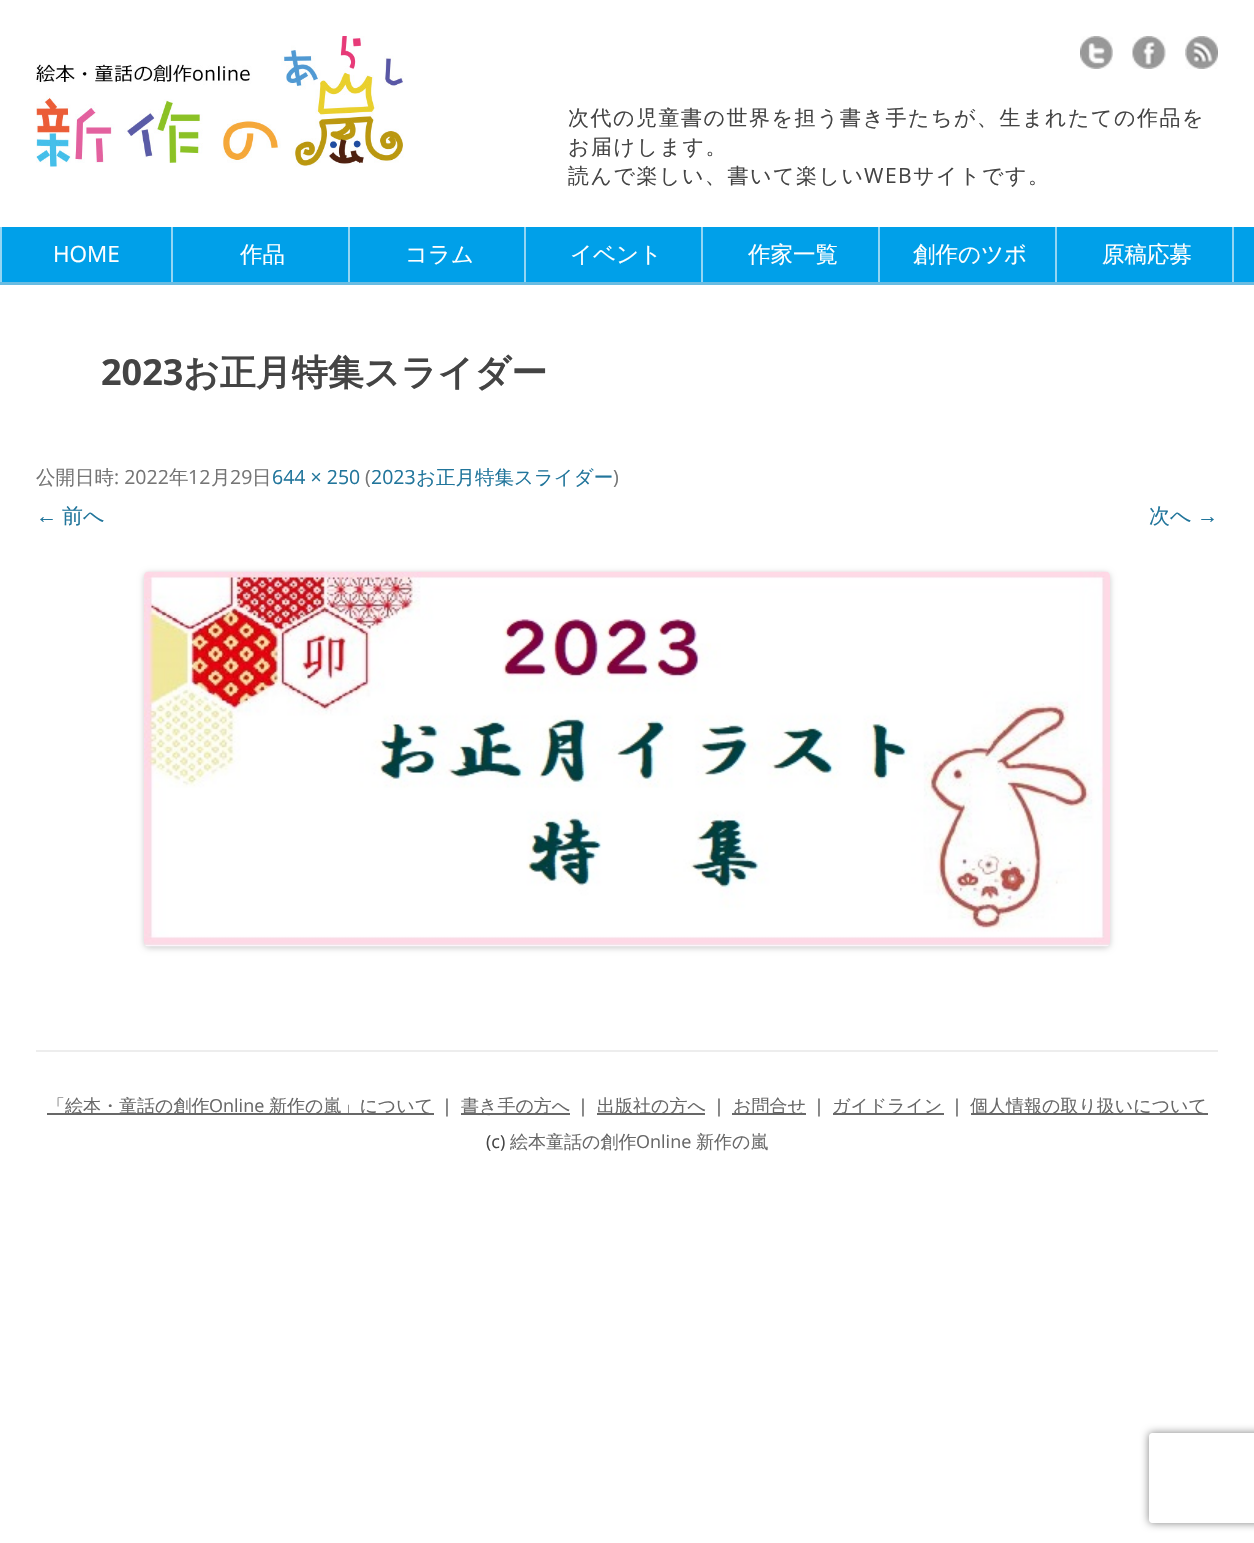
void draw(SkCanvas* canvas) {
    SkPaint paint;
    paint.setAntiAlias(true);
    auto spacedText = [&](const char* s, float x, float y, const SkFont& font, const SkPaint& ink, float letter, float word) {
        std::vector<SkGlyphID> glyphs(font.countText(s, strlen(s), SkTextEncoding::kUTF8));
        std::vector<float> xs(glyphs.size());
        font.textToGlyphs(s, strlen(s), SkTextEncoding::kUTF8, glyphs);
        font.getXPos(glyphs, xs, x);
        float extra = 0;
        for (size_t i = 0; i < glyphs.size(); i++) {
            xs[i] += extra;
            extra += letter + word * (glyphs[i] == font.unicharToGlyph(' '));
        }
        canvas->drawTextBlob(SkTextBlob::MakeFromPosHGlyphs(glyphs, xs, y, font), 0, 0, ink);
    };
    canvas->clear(0xFFFFFFFF);
    canvas->drawImageRect(SkImages::DeferredFromEncodedData(SkData::MakeFromFileName("img1.png")), SkRect::MakeXYWH(36, 36, 368, 131), SkSamplingOptions());
    canvas->drawImageRect(SkImages::DeferredFromEncodedData(SkData::MakeFromFileName("img2.png")), SkRect::MakeXYWH(1080, 36, 33, 33), SkSamplingOptions());
    canvas->drawImageRect(SkImages::DeferredFromEncodedData(SkData::MakeFromFileName("img3.png")), SkRect::MakeXYWH(1132, 36, 34, 33), SkSamplingOptions());
    canvas->drawImageRect(SkImages::DeferredFromEncodedData(SkData::MakeFromFileName("img4.png")), SkRect::MakeXYWH(1185, 36, 33, 33), SkSamplingOptions());
    SkFont font1(fontMgr->matchFamilyStyle("WenQuanYi Zen Hei", SkFontStyle(500, SkFontStyle::kNormal_Width, SkFontStyle::kUpright_Slant)), 21);
    font1.setSubpixel(true);
    paint.setColor(0xFF444444);
    spacedText("次代の児童書の世界を担う書き手たちが、生まれたての作品を", 568, 125, font1, paint, 1.5f, 0);
    spacedText("お届けします。", 568, 154, font1, paint, 1.5f, 0);
    spacedText("読んで楽しい、書いて楽しい", 568, 183, font1, paint, 1.5f, 0);
    SkFont font2(fontMgr->matchFamilyStyle("Open Sans", SkFontStyle::Normal()), 21);
    font2.setSubpixel(true);
    spacedText("WEB", 864, 183, font2, paint, 1.5f, 0);
    spacedText("サイトです。", 913, 183, font1, paint, 1.5f, 0);
    paint.setColor(0xFF00A0E9);
    canvas->drawRect(SkRect::MakeXYWH(2, 227, 1252, 55), paint);
    paint.setColor(0xFF69BCE2);
    canvas->drawRect(SkRect::MakeXYWH(0, 282, 1254, 3), paint);
    paint.setColor(0xFF93D5F3);
    canvas->drawRect(SkRect::MakeXYWH(0, 227, 2, 55), paint);
    canvas->drawRect(SkRect::MakeXYWH(171, 227, 2, 55), paint);
    SkFont font3(fontMgr->matchFamilyStyle("Open Sans", SkFontStyle::Normal()), 22.5f);
    font3.setSubpixel(true);
    paint.setColor(0xFFFFFFFF);
    canvas->drawString("HOME", 53, 262, font3, paint);
    paint.setColor(0xFF93D5F3);
    canvas->drawRect(SkRect::MakeXYWH(348, 227, 2, 55), paint);
    SkFont font4(fontMgr->matchFamilyStyle("WenQuanYi Zen Hei", SkFontStyle(500, SkFontStyle::kNormal_Width, SkFontStyle::kUpright_Slant)), 22.5f);
    font4.setSubpixel(true);
    paint.setColor(0xFFFFFFFF);
    canvas->drawString("作品", 240, 262, font4, paint);
    paint.setColor(0xFF93D5F3);
    canvas->drawRect(SkRect::MakeXYWH(524, 227, 2, 55), paint);
    paint.setColor(0xFFFFFFFF);
    canvas->drawString("コラム", 405, 262, font4, paint);
    paint.setColor(0xFF93D5F3);
    canvas->drawRect(SkRect::MakeXYWH(701, 227, 2, 55), paint);
    paint.setColor(0xFFFFFFFF);
    canvas->drawString("イベント", 570, 262, font4, paint);
    paint.setColor(0xFF93D5F3);
    canvas->drawRect(SkRect::MakeXYWH(878, 227, 2, 55), paint);
    paint.setColor(0xFFFFFFFF);
    canvas->drawString("作家一覧", 748, 262, font4, paint);
    paint.setColor(0xFF93D5F3);
    canvas->drawRect(SkRect::MakeXYWH(1055, 227, 2, 55), paint);
    paint.setColor(0xFFFFFFFF);
    canvas->drawString("創作のツボ", 913, 262, font4, paint);
    paint.setColor(0xFF93D5F3);
    canvas->drawRect(SkRect::MakeXYWH(1232, 227, 2, 55), paint);
    paint.setColor(0xFFFFFFFF);
    canvas->drawString("原稿応募", 1102, 262, font4, paint);
    SkFont font5(fontMgr->matchFamilyStyle("Open Sans", SkFontStyle::Bold()), 36);
    font5.setSubpixel(true);
    paint.setColor(0xFF444444);
    canvas->drawString("2023", 101, 385, font5, paint);
    SkFont font6(fontMgr->matchFamilyStyle("WenQuanYi Zen Hei", SkFontStyle::Bold()), 36);
    font6.setSubpixel(true);
    canvas->drawString("お正月特集スライダー", 183, 385, font6, paint);
    SkFont font7(fontMgr->matchFamilyStyle("WenQuanYi Zen Hei", SkFontStyle(500, SkFontStyle::kNormal_Width, SkFontStyle::kUpright_Slant)), 19.5f);
    font7.setSubpixel(true);
    paint.setColor(0xFF757575);
    canvas->drawString("公開日時", 36, 484, font7, paint);
    SkFont font8(fontMgr->matchFamilyStyle("Open Sans", SkFontStyle::Normal()), 19.5f);
    font8.setSubpixel(true);
    canvas->drawString(": 2022", 114, 484, font8, paint);
    canvas->drawString("年", 169, 484, font7, paint);
    canvas->drawString("12", 188, 484, font8, paint);
    canvas->drawString("月", 211, 484, font7, paint);
    canvas->drawString("29", 230, 484, font8, paint);
    canvas->drawString("日", 252, 484, font7, paint);
    paint.setColor(0xFF21759B);
    canvas->drawString("644 × 250", 272, 484, font8, paint);
    paint.setColor(0xFF757575);
    canvas->drawString("(", 365, 484, font8, paint);
    paint.setColor(0xFF21759B);
    canvas->drawString("2023", 371, 484, font8, paint);
    canvas->drawString("お正月特集スライダー", 416, 484, font7, paint);
    paint.setColor(0xFF757575);
    canvas->drawString(")", 613, 484, font8, paint);
    SkFont font9(fontMgr->matchFamilyStyle("Liberation Sans", SkFontStyle::Normal()), 21);
    font9.setSubpixel(true);
    paint.setColor(0xFF21759B);
    canvas->drawString("←", 36, 523, font9, paint);
    canvas->drawString("前へ", 62, 523, font1, paint);
    canvas->drawString("次へ", 1149, 523, font1, paint);
    canvas->drawString("→", 1197, 523, font9, paint);
    paint.setColor(0x33000000);
    paint.setMaskFilter(SkMaskFilter::MakeBlur(kNormal_SkBlurStyle, 3));
    canvas->drawRoundRect(SkRect::MakeXYWH(144, 573, 966, 375), 5, 5, paint);
    paint.setMaskFilter(nullptr);
    canvas->drawImageRect(SkImages::DeferredFromEncodedData(SkData::MakeFromFileName("img5.png")), SkRect::MakeXYWH(144, 571, 966, 376), SkSamplingOptions());
    paint.setColor(0xFFEDEDED);
    canvas->drawRect(SkRect::MakeXYWH(36, 1050, 1182, 2), paint);
    paint.setColor(0xFF686868);
    canvas->drawRect(SkRect::MakeXYWH(47, 1113, 387, 2), paint);
    SkFont font10(fontMgr->matchFamilyStyle("WenQuanYi Zen Hei", SkFontStyle(500, SkFontStyle::kNormal_Width, SkFontStyle::kUpright_Slant)), 18);
    font10.setSubpixel(true);
    canvas->drawString("「絵本・童話の創作", 47, 1112, font10, paint);
    SkFont font11(fontMgr->matchFamilyStyle("Open Sans", SkFontStyle::Normal()), 18);
    font11.setSubpixel(true);
    canvas->drawString("Online", 209, 1112, font11, paint);
    canvas->drawString("新作の嵐」について", 269, 1112, font10, paint);
    paint.setColor(0xFF444444);
    canvas->drawString("｜", 438, 1112, font10, paint);
    paint.setColor(0xFF686868);
    canvas->drawRect(SkRect::MakeXYWH(461, 1113, 109, 2), paint);
    canvas->drawString("書き手の方へ", 461, 1112, font10, paint);
    paint.setColor(0xFF444444);
    canvas->drawString("｜", 574, 1112, font10, paint);
    paint.setColor(0xFF686868);
    canvas->drawRect(SkRect::MakeXYWH(597, 1113, 108, 2), paint);
    canvas->drawString("出版社の方へ", 597, 1112, font10, paint);
    paint.setColor(0xFF444444);
    canvas->drawString("｜", 710, 1112, font10, paint);
    paint.setColor(0xFF686868);
    canvas->drawRect(SkRect::MakeXYWH(732, 1113, 74, 2), paint);
    canvas->drawString("お問合せ", 733, 1112, font10, paint);
    paint.setColor(0xFF444444);
    canvas->drawString("｜", 810, 1112, font10, paint);
    paint.setColor(0xFF686868);
    canvas->drawRect(SkRect::MakeXYWH(833, 1113, 111, 2), paint);
    canvas->drawString("ガイドライン", 832, 1112, font10, paint);
    paint.setColor(0xFF444444);
    canvas->drawString("｜", 948, 1112, font10, paint);
    paint.setColor(0xFF686868);
    canvas->drawRect(SkRect::MakeXYWH(971, 1113, 237, 2), paint);
    canvas->drawString("個人情報の取り扱いについて", 970, 1112, font10, paint);
    paint.setColor(0xFF444444);
    canvas->drawString("(c)", 486, 1148, font11, paint);
    paint.setColor(0xFF686868);
    canvas->drawString("絵本童話の創作", 510, 1148, font10, paint);
    canvas->drawString("Online", 636, 1148, font11, paint);
    canvas->drawString("新作の嵐", 696, 1148, font10, paint);
    canvas->save();
    canvas->clipPath(SkPathBuilder(SkPathFillType::kEvenOdd).moveTo(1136, 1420).lineTo(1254, 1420).lineTo(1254, 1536).lineTo(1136, 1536).close().moveTo(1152, 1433).lineTo(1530, 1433).cubicTo(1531.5f, 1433, 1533, 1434.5f, 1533, 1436).lineTo(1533, 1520).cubicTo(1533, 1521.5f, 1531.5f, 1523, 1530, 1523).lineTo(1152, 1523).cubicTo(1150.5f, 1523, 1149, 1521.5f, 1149, 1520).lineTo(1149, 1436).cubicTo(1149, 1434.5f, 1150.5f, 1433, 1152, 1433).close().detach(), true);
    paint.setColor(0xFF808080);
    paint.setMaskFilter(SkMaskFilter::MakeBlur(kNormal_SkBlurStyle, 4));
    canvas->drawRoundRect(SkRect::MakeXYWH(1149, 1433, 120, 90), 3, 3, paint);
    paint.setMaskFilter(nullptr);
    canvas->restore();
}
